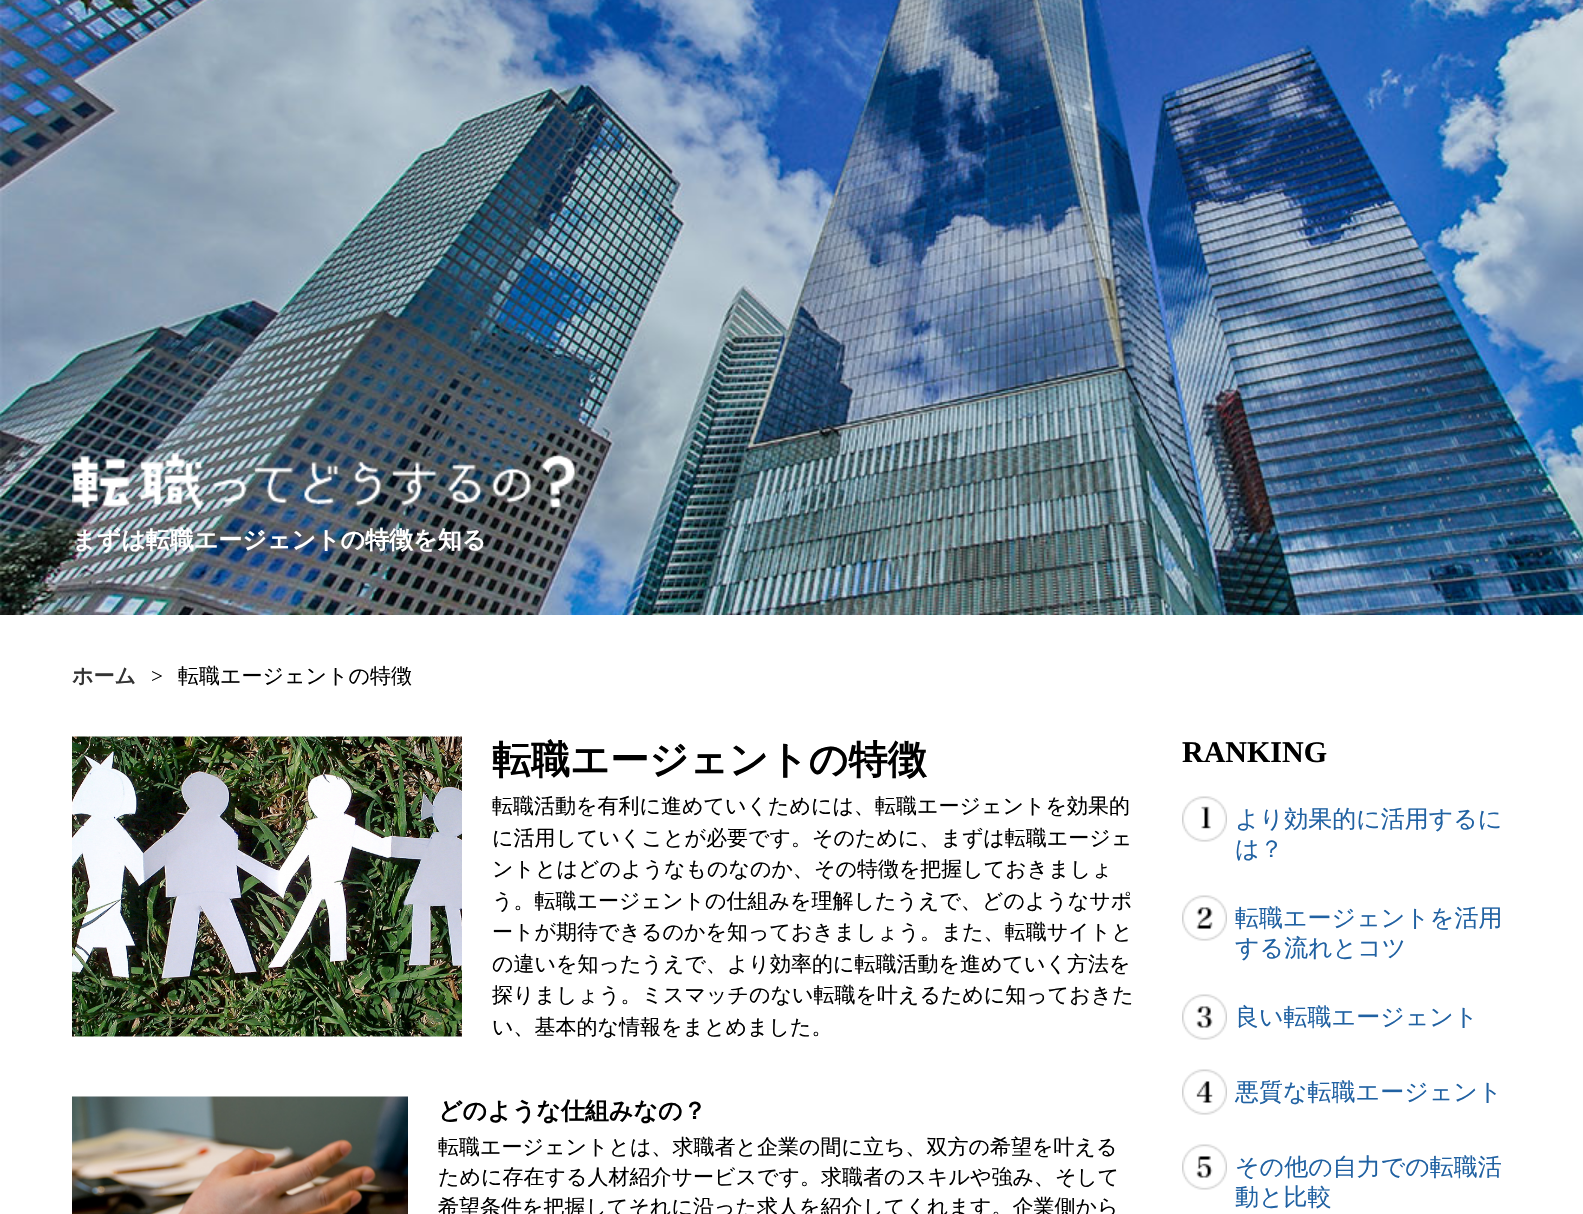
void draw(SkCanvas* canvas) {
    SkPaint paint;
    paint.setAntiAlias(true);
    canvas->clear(0xFFFFFFFF);
    canvas->drawImageRect(SkImages::DeferredFromEncodedData(SkData::MakeFromFileName("img1.png")), SkRect::MakeXYWH(0, 0, 1583, 615), SkSamplingOptions());
    canvas->drawImageRect(SkImages::DeferredFromEncodedData(SkData::MakeFromFileName("img2.png")), SkRect::MakeXYWH(72, 453, 503, 57), SkSamplingOptions());
    SkFont font1(fontMgr->matchFamilyStyle("WenQuanYi Zen Hei", SkFontStyle::Bold()), 24);
    font1.setSubpixel(true);
    paint.setColor(0xFFFFFFFF);
    canvas->drawString("まずは転職エージェントの特徴を知る", 72, 548, font1, paint);
    SkFont font2(fontMgr->matchFamilyStyle("WenQuanYi Zen Hei", SkFontStyle::Bold()), 21);
    font2.setSubpixel(true);
    paint.setColor(0xFF333333);
    canvas->drawString("ホーム", 72, 683, font2, paint);
    SkFont font3(fontMgr->matchFamilyStyle("Liberation Serif", SkFontStyle::Normal()), 21);
    font3.setSubpixel(true);
    paint.setColor(0xFF000000);
    canvas->drawString(">", 151, 683, font3, paint);
    SkFont font4(fontMgr->matchFamilyStyle("WenQuanYi Zen Hei", SkFontStyle(500, SkFontStyle::kNormal_Width, SkFontStyle::kUpright_Slant)), 21);
    font4.setSubpixel(true);
    canvas->drawString("転職エージェントの特徴", 178, 683, font4, paint);
    canvas->drawImageRect(SkImages::DeferredFromEncodedData(SkData::MakeFromFileName("img3.png")), SkRect::MakeXYWH(72, 736, 390, 301), SkSamplingOptions());
    SkFont font5(fontMgr->matchFamilyStyle("WenQuanYi Zen Hei", SkFontStyle::Bold()), 39);
    font5.setSubpixel(true);
    canvas->drawString("転職エージェントの特徴", 492, 773, font5, paint);
    canvas->drawString("転職活動を有利に進めていくためには、転職エージェントを効果的", 492, 813, font4, paint);
    canvas->drawString("に活用していくことが必要です。そのために、まずは転職エージェ", 492, 845, font4, paint);
    canvas->drawString("ントとはどのようなものなのか、その特徴を把握しておきましょ", 492, 876, font4, paint);
    canvas->drawString("う。転職エージェントの仕組みを理解したうえで、どのようなサポ", 492, 908, font4, paint);
    canvas->drawString("ートが期待できるのかを知っておきましょう。また、転職サイトと", 492, 939, font4, paint);
    canvas->drawString("の違いを知ったうえで、より効率的に転職活動を進めていく方法を", 492, 971, font4, paint);
    canvas->drawString("探りましょう。ミスマッチのない転職を叶えるために知っておきた", 492, 1002, font4, paint);
    canvas->drawString("い、基本的な情報をまとめました。", 492, 1034, font4, paint);
    canvas->drawImageRect(SkImages::DeferredFromEncodedData(SkData::MakeFromFileName("img4.png")), SkRect::MakeXYWH(72, 1096, 336, 118), SkSamplingOptions());
    canvas->drawString("どのような仕組みなの？", 438, 1119, font1, paint);
    canvas->drawString("転職エージェントとは、求職者と企業の間に立ち、双方の希望を叶える", 438, 1154, font4, paint);
    canvas->drawString("ために存在する人材紹介サービスです。求職者のスキルや強み、そして", 438, 1184, font4, paint);
    canvas->drawString("希望条件を把握してそれに沿った求人を紹介してくれます。企業側から", 438, 1214, font4, paint);
    SkFont font6(fontMgr->matchFamilyStyle("Liberation Serif", SkFontStyle::Bold()), 30);
    font6.setSubpixel(true);
    canvas->drawString("RANKING", 1182, 762, font6, paint);
    canvas->drawImageRect(SkImages::DeferredFromEncodedData(SkData::MakeFromFileName("img5.png")), SkRect::MakeXYWH(1182, 796, 45, 46), SkSamplingOptions());
    SkFont font7(fontMgr->matchFamilyStyle("WenQuanYi Zen Hei", SkFontStyle(500, SkFontStyle::kNormal_Width, SkFontStyle::kUpright_Slant)), 24);
    font7.setSubpixel(true);
    paint.setColor(0xFF2061A2);
    canvas->drawString("より効果的に活用するに", 1235, 827, font7, paint);
    canvas->drawString("は？", 1235, 857, font7, paint);
    canvas->drawImageRect(SkImages::DeferredFromEncodedData(SkData::MakeFromFileName("img6.png")), SkRect::MakeXYWH(1182, 895, 45, 46), SkSamplingOptions());
    canvas->drawString("転職エージェントを活用", 1235, 926, font7, paint);
    canvas->drawString("する流れとコツ", 1235, 956, font7, paint);
    canvas->drawImageRect(SkImages::DeferredFromEncodedData(SkData::MakeFromFileName("img7.png")), SkRect::MakeXYWH(1182, 994, 45, 46), SkSamplingOptions());
    canvas->drawString("良い転職エージェント", 1235, 1025, font7, paint);
    canvas->drawImageRect(SkImages::DeferredFromEncodedData(SkData::MakeFromFileName("img8.png")), SkRect::MakeXYWH(1182, 1069, 45, 46), SkSamplingOptions());
    canvas->drawString("悪質な転職エージェント", 1235, 1100, font7, paint);
    canvas->drawImageRect(SkImages::DeferredFromEncodedData(SkData::MakeFromFileName("img9.png")), SkRect::MakeXYWH(1182, 1144, 45, 46), SkSamplingOptions());
    canvas->drawString("その他の自力での転職活", 1235, 1175, font7, paint);
    canvas->drawString("動と比較", 1235, 1205, font7, paint);
}
